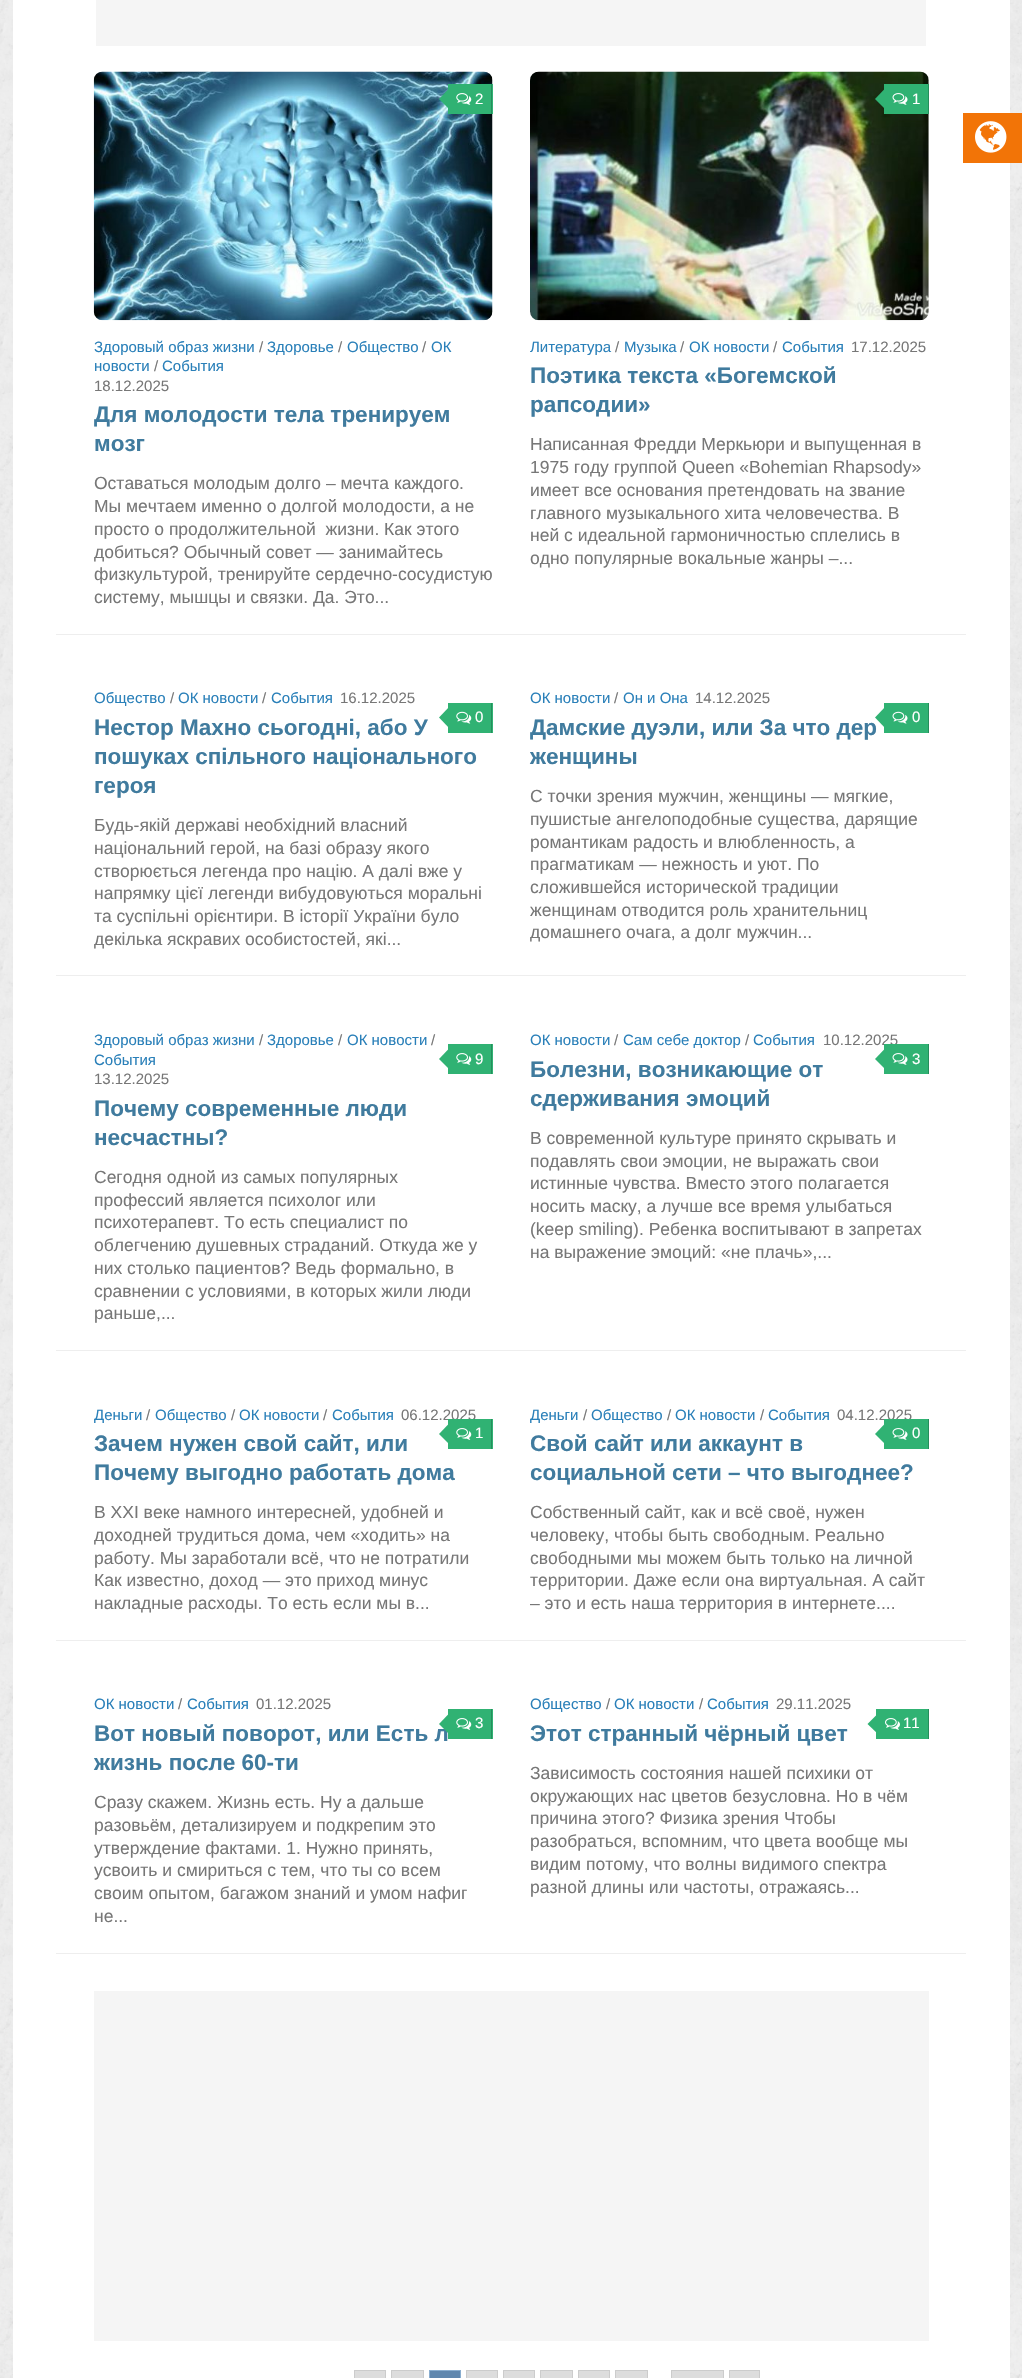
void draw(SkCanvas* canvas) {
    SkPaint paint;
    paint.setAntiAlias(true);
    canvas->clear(0xFFFFFFFF);
    canvas->drawImageRect(SkImages::DeferredFromEncodedData(SkData::MakeFromFileName("img1.png")), SkRect::MakeXYWH(0, 0, 1022, 2378), SkSamplingOptions());
    paint.setColor(0xFFFFFFFF);
    canvas->drawRect(SkRect::MakeXYWH(13, 0, 997, 2378), paint);
    paint.setColor(0xFFF5F5F5);
    canvas->drawRect(SkRect::MakeXYWH(96, 0, 830, 46), paint);
    paint.setColor(0xFFEEEEEE);
    canvas->drawRect(SkRect::MakeXYWH(56, 634, 910, 1), paint);
    canvas->drawImageRect(SkImages::DeferredFromEncodedData(SkData::MakeFromFileName("img2.png")), SkRect::MakeXYWH(93, 71, 400, 250), SkSamplingOptions());
    paint.setColor(0xFF30B273);
    canvas->drawRect(SkRect::MakeXYWH(448, 84, 45, 30), paint);
    paint.setColor(0xFF268E5C);
    canvas->drawRect(SkRect::MakeXYWH(491, 84, 1, 30), paint);
    paint.setColor(0xFF30B273);
    canvas->drawPath(SkPathBuilder().moveTo(450, 87.5f).lineTo(450, 110).lineTo(439, 99).close().detach(), paint);
    canvas->drawImageRect(SkImages::DeferredFromEncodedData(SkData::MakeFromFileName("img3.png")), SkRect::MakeXYWH(456, 93, 16, 12), SkSamplingOptions());
    SkFont font1(fontMgr->matchFamilyStyle("Liberation Sans", SkFontStyle::Normal()), 15);
    font1.setSubpixel(true);
    paint.setColor(0xFFFFFFFF);
    canvas->drawString("2", 475, 104, font1, paint);
    paint.setColor(0xFF2A80B9);
    canvas->drawString("Здоровый образ жизни", 94, 352, font1, paint);
    paint.setColor(0xFF777777);
    canvas->drawString("/", 259, 352, font1, paint);
    paint.setColor(0xFF2A80B9);
    canvas->drawString("Здоровье", 267, 352, font1, paint);
    paint.setColor(0xFF777777);
    canvas->drawString("/", 338, 352, font1, paint);
    paint.setColor(0xFF2A80B9);
    canvas->drawString("Общество", 347, 352, font1, paint);
    paint.setColor(0xFF777777);
    canvas->drawString("/", 422, 352, font1, paint);
    paint.setColor(0xFF2A80B9);
    canvas->drawString("ОК", 431, 352, font1, paint);
    canvas->drawString("новости", 94, 371, font1, paint);
    paint.setColor(0xFF777777);
    canvas->drawString("/", 154, 371, font1, paint);
    paint.setColor(0xFF2A80B9);
    canvas->drawString("События", 162, 371, font1, paint);
    paint.setColor(0xFF777777);
    canvas->drawString("18.12.2025", 94, 391, font1, paint);
    SkFont font2(fontMgr->matchFamilyStyle("Liberation Sans", SkFontStyle::Bold()), 22.5f);
    font2.setSubpixel(true);
    paint.setColor(0xFF407B9E);
    canvas->drawString("Для молодости тела тренируем", 94, 422, font2, paint);
    canvas->drawString("мозг", 94, 451, font2, paint);
    SkFont font3(fontMgr->matchFamilyStyle("Liberation Sans", SkFontStyle::Normal()), 17.5f);
    font3.setSubpixel(true);
    paint.setColor(0xFF777777);
    canvas->drawString("Оставаться молодым долго – мечта каждого.", 94, 489, font3, paint);
    canvas->drawString("Мы мечтаем именно о долгой молодости, а не", 94, 512, font3, paint);
    canvas->drawString("просто о продолжительной  жизни. Как этого", 94, 535, font3, paint);
    canvas->save();
    canvas->clipRect(SkRect::MakeXYWH(94, 71, 436, 538));
    canvas->drawString("добиться? Обычный совет — занимайтесь", 94, 558, font3, paint);
    canvas->restore();
    canvas->drawString("физкультурой, тренируйте сердечно-сосудистую", 94, 580, font3, paint);
    canvas->drawString("систему, мышцы и связки. Да. Это...", 94, 603, font3, paint);
    canvas->drawImageRect(SkImages::DeferredFromEncodedData(SkData::MakeFromFileName("img4.png")), SkRect::MakeXYWH(530, 71, 399, 250), SkSamplingOptions());
    paint.setColor(0xFF30B273);
    canvas->drawRect(SkRect::MakeXYWH(884, 84, 44, 30), paint);
    paint.setColor(0xFF268E5C);
    canvas->drawRect(SkRect::MakeXYWH(928, 84, 1, 30), paint);
    paint.setColor(0xFF30B273);
    canvas->drawPath(SkPathBuilder().moveTo(886, 87.5f).lineTo(886, 110).lineTo(875, 99).close().detach(), paint);
    canvas->drawImageRect(SkImages::DeferredFromEncodedData(SkData::MakeFromFileName("img5.png")), SkRect::MakeXYWH(892, 93, 16, 12), SkSamplingOptions());
    paint.setColor(0xFFFFFFFF);
    canvas->drawString("1", 912, 104, font1, paint);
    paint.setColor(0xFF2A80B9);
    canvas->drawString("Литература", 530, 352, font1, paint);
    paint.setColor(0xFF777777);
    canvas->drawString("/", 615, 352, font1, paint);
    paint.setColor(0xFF2A80B9);
    canvas->drawString("Музыка", 624, 352, font1, paint);
    paint.setColor(0xFF777777);
    canvas->drawString("/", 680, 352, font1, paint);
    paint.setColor(0xFF2A80B9);
    canvas->drawString("ОК новости", 689, 352, font1, paint);
    paint.setColor(0xFF777777);
    canvas->drawString("/", 773, 352, font1, paint);
    paint.setColor(0xFF2A80B9);
    canvas->drawString("События", 782, 352, font1, paint);
    paint.setColor(0xFF777777);
    canvas->drawString("17.12.2025", 851, 352, font1, paint);
    paint.setColor(0xFF407B9E);
    canvas->drawString("Поэтика текста «Богемской", 530, 383, font2, paint);
    canvas->drawString("рапсодии»", 530, 412, font2, paint);
    paint.setColor(0xFF777777);
    canvas->drawString("Написанная Фредди Меркьюри и выпущенная в", 530, 450, font3, paint);
    canvas->drawString("1975 году группой Queen «Bohemian Rhapsody»", 530, 473, font3, paint);
    canvas->drawString("имеет все основания претендовать на звание", 530, 496, font3, paint);
    canvas->drawString("главного музыкального хита человечества. В", 530, 519, font3, paint);
    canvas->drawString("ней с идеальной гармоничностью сплелись в", 530, 541, font3, paint);
    canvas->drawString("одно популярные вокальные жанры –...", 530, 564, font3, paint);
    paint.setColor(0xFFEEEEEE);
    canvas->drawRect(SkRect::MakeXYWH(56, 975, 910, 1), paint);
    paint.setColor(0xFF2A80B9);
    canvas->drawString("Общество", 94, 703, font1, paint);
    paint.setColor(0xFF777777);
    canvas->drawString("/", 170, 703, font1, paint);
    paint.setColor(0xFF2A80B9);
    canvas->drawString("ОК новости", 178, 703, font1, paint);
    paint.setColor(0xFF777777);
    canvas->drawString("/", 262, 703, font1, paint);
    paint.setColor(0xFF2A80B9);
    canvas->drawString("События", 271, 703, font1, paint);
    paint.setColor(0xFF777777);
    canvas->drawString("16.12.2025", 340, 703, font1, paint);
    paint.setColor(0xFF407B9E);
    canvas->drawString("Нестор Махно сьогодні, або У", 94, 735, font2, paint);
    canvas->drawString("пошуках спільного національного", 94, 764, font2, paint);
    canvas->drawString("героя", 94, 793, font2, paint);
    paint.setColor(0xFF30B273);
    canvas->drawRect(SkRect::MakeXYWH(448, 703, 45, 30), paint);
    paint.setColor(0xFF268E5C);
    canvas->drawRect(SkRect::MakeXYWH(491, 703, 1, 30), paint);
    paint.setColor(0xFF30B273);
    canvas->drawPath(SkPathBuilder().moveTo(450, 706).lineTo(450, 729).lineTo(439, 717.5f).close().detach(), paint);
    canvas->drawImageRect(SkImages::DeferredFromEncodedData(SkData::MakeFromFileName("img6.png")), SkRect::MakeXYWH(456, 711, 16, 13), SkSamplingOptions());
    paint.setColor(0xFFFFFFFF);
    canvas->drawString("0", 475, 722, font1, paint);
    paint.setColor(0xFF777777);
    canvas->drawString("Будь-якій державі необхідний власний", 94, 831, font3, paint);
    canvas->drawString("національний герой, на базі образу якого", 94, 854, font3, paint);
    canvas->drawString("створюється легенда про націю. А далі вже у", 94, 877, font3, paint);
    canvas->drawString("напрямку цієї легенди вибудовуються моральні", 94, 899, font3, paint);
    canvas->drawString("та суспільні орієнтири. В історії України було", 94, 922, font3, paint);
    canvas->save();
    canvas->clipRect(SkRect::MakeXYWH(94, 673, 436, 277));
    canvas->drawString("декілька яскравих особистостей, які...", 94, 945, font3, paint);
    canvas->restore();
    paint.setColor(0xFF2A80B9);
    canvas->drawString("ОК новости", 530, 703, font1, paint);
    paint.setColor(0xFF777777);
    canvas->drawString("/", 614, 703, font1, paint);
    paint.setColor(0xFF2A80B9);
    canvas->drawString("Он и Она", 623, 703, font1, paint);
    paint.setColor(0xFF777777);
    canvas->drawString("14.12.2025", 695, 703, font1, paint);
    paint.setColor(0xFF30B273);
    canvas->drawRect(SkRect::MakeXYWH(884, 703, 44, 30), paint);
    paint.setColor(0xFF268E5C);
    canvas->drawRect(SkRect::MakeXYWH(928, 703, 1, 30), paint);
    paint.setColor(0xFF407B9E);
    canvas->drawString("Дамские дуэли, или За что дер", 530, 735, font2, paint);
    paint.setColor(0xFF30B273);
    canvas->drawPath(SkPathBuilder().moveTo(886, 706).lineTo(886, 729).lineTo(875, 717.5f).close().detach(), paint);
    canvas->drawImageRect(SkImages::DeferredFromEncodedData(SkData::MakeFromFileName("img7.png")), SkRect::MakeXYWH(892, 711, 16, 13), SkSamplingOptions());
    paint.setColor(0xFFFFFFFF);
    canvas->drawString("0", 912, 722, font1, paint);
    paint.setColor(0xFF407B9E);
    canvas->drawString("женщины", 530, 764, font2, paint);
    paint.setColor(0xFF777777);
    canvas->drawString("С точки зрения мужчин, женщины — мягкие,", 530, 802, font3, paint);
    canvas->drawString("пушистые ангелоподобные существа, дарящие", 530, 825, font3, paint);
    canvas->drawString("романтикам радость и влюбленность, а", 530, 848, font3, paint);
    canvas->drawString("прагматикам — нежность и уют. По", 530, 870, font3, paint);
    canvas->drawString("сложившейся исторической традиции", 530, 893, font3, paint);
    canvas->drawString("женщинам отводится роль хранительниц", 530, 916, font3, paint);
    canvas->drawString("домашнего очага, а долг мужчин...", 530, 938, font3, paint);
    paint.setColor(0xFFEEEEEE);
    canvas->drawRect(SkRect::MakeXYWH(56, 1350, 910, 1), paint);
    paint.setColor(0xFF2A80B9);
    canvas->drawString("Здоровый образ жизни", 94, 1045, font1, paint);
    paint.setColor(0xFF777777);
    canvas->drawString("/", 259, 1045, font1, paint);
    paint.setColor(0xFF2A80B9);
    canvas->drawString("Здоровье", 267, 1045, font1, paint);
    paint.setColor(0xFF777777);
    canvas->drawString("/", 338, 1045, font1, paint);
    paint.setColor(0xFF2A80B9);
    canvas->drawString("ОК новости", 347, 1045, font1, paint);
    paint.setColor(0xFF777777);
    canvas->drawString("/", 431, 1045, font1, paint);
    paint.setColor(0xFF2A80B9);
    canvas->drawString("События", 94, 1065, font1, paint);
    paint.setColor(0xFF777777);
    canvas->drawString("13.12.2025", 94, 1084, font1, paint);
    paint.setColor(0xFF30B273);
    canvas->drawRect(SkRect::MakeXYWH(448, 1044, 45, 30), paint);
    paint.setColor(0xFF268E5C);
    canvas->drawRect(SkRect::MakeXYWH(491, 1044, 1, 30), paint);
    paint.setColor(0xFF30B273);
    canvas->drawPath(SkPathBuilder().moveTo(450, 1047.5f).lineTo(450, 1070).lineTo(439, 1059).close().detach(), paint);
    canvas->drawImageRect(SkImages::DeferredFromEncodedData(SkData::MakeFromFileName("img3.png")), SkRect::MakeXYWH(456, 1053, 16, 12), SkSamplingOptions());
    paint.setColor(0xFFFFFFFF);
    canvas->drawString("9", 475, 1064, font1, paint);
    paint.setColor(0xFF407B9E);
    canvas->drawString("Почему современные люди", 94, 1116, font2, paint);
    canvas->drawString("несчастны?", 94, 1145, font2, paint);
    paint.setColor(0xFF777777);
    canvas->drawString("Сегодня одной из самых популярных", 94, 1183, font3, paint);
    canvas->drawString("профессий является психолог или", 94, 1206, font3, paint);
    canvas->drawString("психотерапевт. То есть специалист по", 94, 1228, font3, paint);
    canvas->drawString("облегчению душевных страданий. Откуда же у", 94, 1251, font3, paint);
    canvas->drawString("них столько пациентов? Ведь формально, в", 94, 1274, font3, paint);
    canvas->drawString("сравнении с условиями, в которых жили люди", 94, 1297, font3, paint);
    canvas->drawString("раньше,...", 94, 1319, font3, paint);
    paint.setColor(0xFF2A80B9);
    canvas->drawString("ОК новости", 530, 1045, font1, paint);
    paint.setColor(0xFF777777);
    canvas->drawString("/", 614, 1045, font1, paint);
    paint.setColor(0xFF2A80B9);
    canvas->drawString("Сам себе доктор", 623, 1045, font1, paint);
    paint.setColor(0xFF777777);
    canvas->drawString("/", 745, 1045, font1, paint);
    paint.setColor(0xFF2A80B9);
    canvas->drawString("События", 753, 1045, font1, paint);
    paint.setColor(0xFF777777);
    canvas->drawString("10.12.2025", 823, 1045, font1, paint);
    paint.setColor(0xFF30B273);
    canvas->drawRect(SkRect::MakeXYWH(884, 1044, 44, 30), paint);
    paint.setColor(0xFF268E5C);
    canvas->drawRect(SkRect::MakeXYWH(928, 1044, 1, 30), paint);
    paint.setColor(0xFF30B273);
    canvas->drawPath(SkPathBuilder().moveTo(886, 1047.5f).lineTo(886, 1070).lineTo(875, 1059).close().detach(), paint);
    canvas->drawImageRect(SkImages::DeferredFromEncodedData(SkData::MakeFromFileName("img5.png")), SkRect::MakeXYWH(892, 1053, 16, 12), SkSamplingOptions());
    paint.setColor(0xFFFFFFFF);
    canvas->drawString("3", 912, 1064, font1, paint);
    paint.setColor(0xFF407B9E);
    canvas->drawString("Болезни, возникающие от", 530, 1077, font2, paint);
    canvas->drawString("сдерживания эмоций", 530, 1106, font2, paint);
    paint.setColor(0xFF777777);
    canvas->drawString("В современной культуре принято скрывать и", 530, 1144, font3, paint);
    canvas->drawString("подавлять свои эмоции, не выражать свои", 530, 1167, font3, paint);
    canvas->drawString("истинные чувства. Вместо этого полагается", 530, 1189, font3, paint);
    canvas->drawString("носить маску, а лучше все время улыбаться", 530, 1212, font3, paint);
    canvas->drawString("(keep smiling). Ребенка воспитывают в запретах", 530, 1235, font3, paint);
    canvas->drawString("на выражение эмоций: «не плачь»,...", 530, 1258, font3, paint);
    paint.setColor(0xFFEEEEEE);
    canvas->drawRect(SkRect::MakeXYWH(56, 1640, 910, 1), paint);
    canvas->save();
    canvas->clipRect(SkRect::MakeXYWH(94, 1389, 436, 226));
    paint.setColor(0xFF2A80B9);
    canvas->drawString("Деньги", 94, 1420, font1, paint);
    canvas->restore();
    paint.setColor(0xFF777777);
    canvas->drawString("/", 146, 1420, font1, paint);
    paint.setColor(0xFF2A80B9);
    canvas->drawString("Общество", 155, 1420, font1, paint);
    paint.setColor(0xFF777777);
    canvas->drawString("/", 231, 1420, font1, paint);
    paint.setColor(0xFF2A80B9);
    canvas->drawString("ОК новости", 239, 1420, font1, paint);
    paint.setColor(0xFF777777);
    canvas->drawString("/", 323, 1420, font1, paint);
    paint.setColor(0xFF2A80B9);
    canvas->drawString("События", 332, 1420, font1, paint);
    paint.setColor(0xFF777777);
    canvas->drawString("06.12.2025", 401, 1420, font1, paint);
    paint.setColor(0xFF30B273);
    canvas->drawRect(SkRect::MakeXYWH(448, 1419, 45, 30), paint);
    paint.setColor(0xFF268E5C);
    canvas->drawRect(SkRect::MakeXYWH(491, 1419, 1, 30), paint);
    paint.setColor(0xFF30B273);
    canvas->drawPath(SkPathBuilder().moveTo(450, 1422.5f).lineTo(450, 1445).lineTo(439, 1434).close().detach(), paint);
    canvas->drawImageRect(SkImages::DeferredFromEncodedData(SkData::MakeFromFileName("img3.png")), SkRect::MakeXYWH(456, 1428, 16, 12), SkSamplingOptions());
    paint.setColor(0xFFFFFFFF);
    canvas->drawString("1", 475, 1438, font1, paint);
    paint.setColor(0xFF407B9E);
    canvas->drawString("Зачем нужен свой сайт, или", 94, 1451, font2, paint);
    canvas->drawString("Почему выгодно работать дома", 94, 1480, font2, paint);
    paint.setColor(0xFF777777);
    canvas->drawString("В XXI веке намного интересней, удобней и", 94, 1518, font3, paint);
    canvas->save();
    canvas->clipRect(SkRect::MakeXYWH(94, 1389, 436, 226));
    canvas->drawString("доходней трудиться дома, чем «ходить» на", 94, 1541, font3, paint);
    canvas->restore();
    canvas->drawString("работу. Мы заработали всё, что не потратили", 94, 1564, font3, paint);
    canvas->drawString("Как известно, доход — это приход минус", 94, 1586, font3, paint);
    canvas->drawString("накладные расходы. То есть если мы в...", 94, 1609, font3, paint);
    paint.setColor(0xFF2A80B9);
    canvas->drawString("Деньги", 530, 1420, font1, paint);
    paint.setColor(0xFF777777);
    canvas->drawString("/", 583, 1420, font1, paint);
    paint.setColor(0xFF2A80B9);
    canvas->drawString("Общество", 591, 1420, font1, paint);
    paint.setColor(0xFF777777);
    canvas->drawString("/", 667, 1420, font1, paint);
    paint.setColor(0xFF2A80B9);
    canvas->drawString("ОК новости", 675, 1420, font1, paint);
    paint.setColor(0xFF777777);
    canvas->drawString("/", 760, 1420, font1, paint);
    paint.setColor(0xFF2A80B9);
    canvas->drawString("События", 768, 1420, font1, paint);
    paint.setColor(0xFF777777);
    canvas->drawString("04.12.2025", 837, 1420, font1, paint);
    paint.setColor(0xFF407B9E);
    canvas->drawString("Свой сайт или аккаунт в", 530, 1451, font2, paint);
    canvas->drawString("социальной сети – что выгоднее?", 530, 1480, font2, paint);
    paint.setColor(0xFF30B273);
    canvas->drawRect(SkRect::MakeXYWH(884, 1419, 44, 30), paint);
    paint.setColor(0xFF268E5C);
    canvas->drawRect(SkRect::MakeXYWH(928, 1419, 1, 30), paint);
    paint.setColor(0xFF30B273);
    canvas->drawPath(SkPathBuilder().moveTo(886, 1422.5f).lineTo(886, 1445).lineTo(875, 1434).close().detach(), paint);
    canvas->drawImageRect(SkImages::DeferredFromEncodedData(SkData::MakeFromFileName("img5.png")), SkRect::MakeXYWH(892, 1428, 16, 12), SkSamplingOptions());
    paint.setColor(0xFFFFFFFF);
    canvas->drawString("0", 912, 1438, font1, paint);
    paint.setColor(0xFF777777);
    canvas->drawString("Собственный сайт, как и всё своё, нужен", 530, 1518, font3, paint);
    canvas->drawString("человеку, чтобы быть свободным. Реально", 530, 1541, font3, paint);
    canvas->drawString("свободными мы можем быть только на личной", 530, 1564, font3, paint);
    canvas->drawString("территории. Даже если она виртуальная. А сайт", 530, 1586, font3, paint);
    canvas->drawString("– это и есть наша территория в интернете....", 530, 1609, font3, paint);
    paint.setColor(0xFFEEEEEE);
    canvas->drawRect(SkRect::MakeXYWH(56, 1953, 910, 1), paint);
    paint.setColor(0xFF2A80B9);
    canvas->drawString("ОК новости", 94, 1709, font1, paint);
    paint.setColor(0xFF777777);
    canvas->drawString("/", 178, 1709, font1, paint);
    paint.setColor(0xFF2A80B9);
    canvas->drawString("События", 187, 1709, font1, paint);
    paint.setColor(0xFF777777);
    canvas->drawString("01.12.2025", 256, 1709, font1, paint);
    paint.setColor(0xFF407B9E);
    canvas->drawString("Вот новый поворот, или Есть л", 94, 1741, font2, paint);
    canvas->drawString("жизнь после 60-ти", 94, 1770, font2, paint);
    paint.setColor(0xFF30B273);
    canvas->drawRect(SkRect::MakeXYWH(448, 1709, 45, 30), paint);
    paint.setColor(0xFF268E5C);
    canvas->drawRect(SkRect::MakeXYWH(491, 1709, 1, 30), paint);
    paint.setColor(0xFF30B273);
    canvas->drawPath(SkPathBuilder().moveTo(450, 1712.5f).lineTo(450, 1735).lineTo(439, 1724).close().detach(), paint);
    canvas->drawImageRect(SkImages::DeferredFromEncodedData(SkData::MakeFromFileName("img3.png")), SkRect::MakeXYWH(456, 1718, 16, 12), SkSamplingOptions());
    paint.setColor(0xFFFFFFFF);
    canvas->drawString("3", 475, 1728, font1, paint);
    paint.setColor(0xFF777777);
    canvas->drawString("Сразу скажем. Жизнь есть. Ну а дальше", 94, 1808, font3, paint);
    canvas->drawString("разовьём, детализируем и подкрепим это", 94, 1831, font3, paint);
    canvas->drawString("утверждение фактами. 1. Нужно принять,", 94, 1854, font3, paint);
    canvas->drawString("усвоить и смириться с тем, что ты со всем", 94, 1876, font3, paint);
    canvas->drawString("своим опытом, багажом знаний и умом нафиг", 94, 1899, font3, paint);
    canvas->drawString("не...", 94, 1922, font3, paint);
    paint.setColor(0xFF2A80B9);
    canvas->drawString("Общество", 530, 1709, font1, paint);
    paint.setColor(0xFF777777);
    canvas->drawString("/", 606, 1709, font1, paint);
    paint.setColor(0xFF2A80B9);
    canvas->drawString("ОК новости", 614, 1709, font1, paint);
    paint.setColor(0xFF777777);
    canvas->drawString("/", 699, 1709, font1, paint);
    paint.setColor(0xFF2A80B9);
    canvas->drawString("События", 707, 1709, font1, paint);
    paint.setColor(0xFF777777);
    canvas->drawString("29.11.2025", 776, 1709, font1, paint);
    paint.setColor(0xFF30B273);
    canvas->drawRect(SkRect::MakeXYWH(876, 1709, 52, 30), paint);
    paint.setColor(0xFF268E5C);
    canvas->drawRect(SkRect::MakeXYWH(928, 1709, 1, 30), paint);
    paint.setColor(0xFF30B273);
    canvas->drawPath(SkPathBuilder().moveTo(879, 1712.5f).lineTo(879, 1735).lineTo(867.5f, 1724).close().detach(), paint);
    canvas->drawImageRect(SkImages::DeferredFromEncodedData(SkData::MakeFromFileName("img8.png")), SkRect::MakeXYWH(885, 1718, 15, 12), SkSamplingOptions());
    paint.setColor(0xFFFFFFFF);
    canvas->drawString("11", 903, 1728, font1, paint);
    paint.setColor(0xFF407B9E);
    canvas->drawString("Этот странный чёрный цвет", 530, 1741, font2, paint);
    paint.setColor(0xFF777777);
    canvas->drawString("Зависимость состояния нашей психики от", 530, 1779, font3, paint);
    canvas->drawString("окружающих нас цветов безусловна. Но в чём", 530, 1802, font3, paint);
    canvas->drawString("причина этого? Физика зрения Чтобы", 530, 1824, font3, paint);
    canvas->drawString("разобраться, вспомним, что цвета вообще мы", 530, 1847, font3, paint);
    canvas->drawString("видим потому, что волны видимого спектра", 530, 1870, font3, paint);
    canvas->drawString("разной длины или частоты, отражаясь...", 530, 1893, font3, paint);
    paint.setColor(0xFFF5F5F5);
    canvas->drawRect(SkRect::MakeXYWH(94, 1991, 835, 350), paint);
    paint.setColor(0xFFDDDDDD);
    canvas->drawRect(SkRect::MakeXYWH(354.5f, 2370.5f, 31, 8), paint);
    paint.setStyle(SkPaint::kStroke_Style);
    paint.setStrokeWidth(1);
    paint.setColor(0xFFCCCCCC);
    canvas->drawRect(SkRect::MakeXYWH(354.5f, 2370.5f, 31, 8), paint);
    paint.setStyle(SkPaint::kFill_Style);
    paint.setColor(0xFFDDDDDD);
    canvas->drawRect(SkRect::MakeXYWH(391.5f, 2370.5f, 32, 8), paint);
    paint.setStyle(SkPaint::kStroke_Style);
    paint.setColor(0xFFCCCCCC);
    canvas->drawRect(SkRect::MakeXYWH(391.5f, 2370.5f, 32, 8), paint);
    paint.setStyle(SkPaint::kFill_Style);
    paint.setColor(0xFF5F87AE);
    canvas->drawRect(SkRect::MakeXYWH(429.5f, 2370.5f, 31, 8), paint);
    paint.setStyle(SkPaint::kStroke_Style);
    paint.setColor(0xFF89ADCF);
    canvas->drawRect(SkRect::MakeXYWH(429.5f, 2370.5f, 31, 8), paint);
    paint.setStyle(SkPaint::kFill_Style);
    paint.setColor(0xFFDDDDDD);
    canvas->drawRect(SkRect::MakeXYWH(466.5f, 2370.5f, 31, 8), paint);
    paint.setStyle(SkPaint::kStroke_Style);
    paint.setColor(0xFFCCCCCC);
    canvas->drawRect(SkRect::MakeXYWH(466.5f, 2370.5f, 31, 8), paint);
    paint.setStyle(SkPaint::kFill_Style);
    paint.setColor(0xFFDDDDDD);
    canvas->drawRect(SkRect::MakeXYWH(503.5f, 2370.5f, 31, 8), paint);
    paint.setStyle(SkPaint::kStroke_Style);
    paint.setColor(0xFFCCCCCC);
    canvas->drawRect(SkRect::MakeXYWH(503.5f, 2370.5f, 31, 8), paint);
    paint.setStyle(SkPaint::kFill_Style);
    paint.setColor(0xFFDDDDDD);
    canvas->drawRect(SkRect::MakeXYWH(540.5f, 2370.5f, 32, 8), paint);
    paint.setStyle(SkPaint::kStroke_Style);
    paint.setColor(0xFFCCCCCC);
    canvas->drawRect(SkRect::MakeXYWH(540.5f, 2370.5f, 32, 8), paint);
    paint.setStyle(SkPaint::kFill_Style);
    paint.setColor(0xFFDDDDDD);
    canvas->drawRect(SkRect::MakeXYWH(578.5f, 2370.5f, 31, 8), paint);
    paint.setStyle(SkPaint::kStroke_Style);
    paint.setColor(0xFFCCCCCC);
    canvas->drawRect(SkRect::MakeXYWH(578.5f, 2370.5f, 31, 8), paint);
    paint.setStyle(SkPaint::kFill_Style);
    paint.setColor(0xFFDDDDDD);
    canvas->drawRect(SkRect::MakeXYWH(615.5f, 2370.5f, 32, 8), paint);
    paint.setStyle(SkPaint::kStroke_Style);
    paint.setColor(0xFFCCCCCC);
    canvas->drawRect(SkRect::MakeXYWH(615.5f, 2370.5f, 32, 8), paint);
    paint.setStyle(SkPaint::kFill_Style);
    paint.setColor(0xFFDDDDDD);
    canvas->drawRect(SkRect::MakeXYWH(671.5f, 2370.5f, 52, 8), paint);
    paint.setStyle(SkPaint::kStroke_Style);
    paint.setColor(0xFFCCCCCC);
    canvas->drawRect(SkRect::MakeXYWH(671.5f, 2370.5f, 52, 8), paint);
    paint.setStyle(SkPaint::kFill_Style);
    paint.setColor(0xFFDDDDDD);
    canvas->drawRect(SkRect::MakeXYWH(729.5f, 2370.5f, 30, 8), paint);
    paint.setStyle(SkPaint::kStroke_Style);
    paint.setColor(0xFFCCCCCC);
    canvas->drawRect(SkRect::MakeXYWH(729.5f, 2370.5f, 30, 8), paint);
    paint.setStyle(SkPaint::kFill_Style);
    paint.setColor(0xFFF27407);
    canvas->drawRect(SkRect::MakeXYWH(963, 113, 59, 50), paint);
    canvas->drawImageRect(SkImages::DeferredFromEncodedData(SkData::MakeFromFileName("img9.png")), SkRect::MakeXYWH(975, 121, 32, 32), SkSamplingOptions());
}
